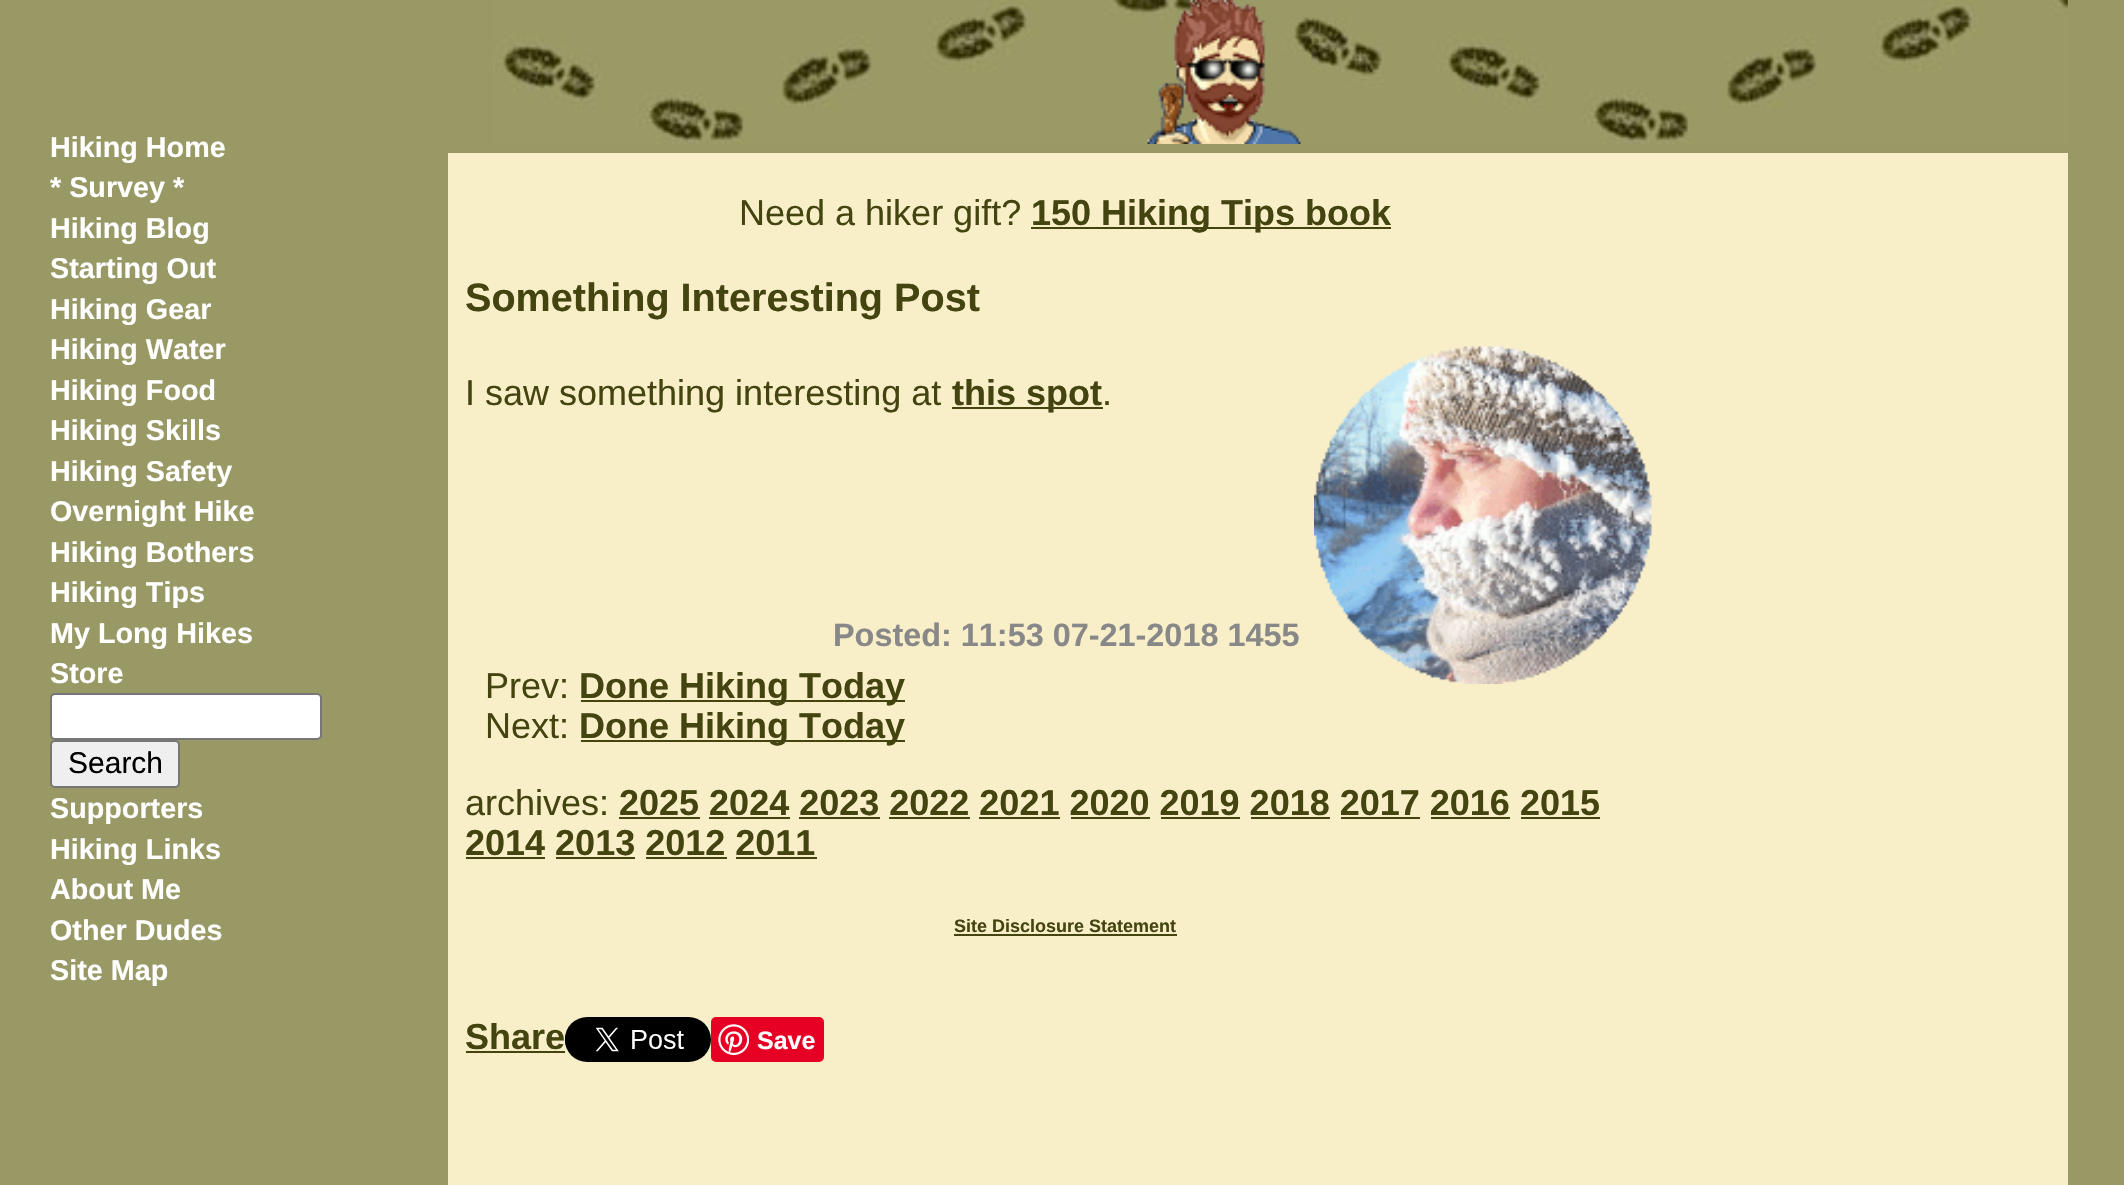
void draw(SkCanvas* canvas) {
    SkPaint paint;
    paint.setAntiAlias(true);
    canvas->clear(0xFF999966);
    SkFont font1(fontMgr->matchFamilyStyle("Liberation Sans", SkFontStyle::Bold()), 28.75f);
    font1.setSubpixel(true);
    paint.setColor(0xFFFFFFFF);
    canvas->drawString("Hiking Home", 50, 157, font1, paint);
    canvas->drawString("* Survey *", 50, 197, font1, paint);
    canvas->drawString("Hiking Blog", 50, 238, font1, paint);
    canvas->drawString("Starting Out", 50, 278, font1, paint);
    canvas->drawString("Hiking Gear", 50, 319, font1, paint);
    canvas->drawString("Hiking Water", 50, 359, font1, paint);
    canvas->drawString("Hiking Food", 50, 400, font1, paint);
    canvas->drawString("Hiking Skills", 50, 440, font1, paint);
    canvas->drawString("Hiking Safety", 50, 481, font1, paint);
    canvas->drawString("Overnight Hike", 50, 521, font1, paint);
    canvas->drawString("Hiking Bothers", 50, 562, font1, paint);
    canvas->drawString("Hiking Tips", 50, 602, font1, paint);
    canvas->drawString("My Long Hikes", 50, 643, font1, paint);
    canvas->drawString("Store", 50, 683, font1, paint);
    canvas->drawRoundRect(SkRect::MakeXYWH(51, 694, 270, 45), 4, 4, paint);
    paint.setStyle(SkPaint::kStroke_Style);
    paint.setStrokeWidth(2);
    paint.setColor(0xFF767676);
    canvas->drawRoundRect(SkRect::MakeXYWH(51, 694, 270, 45), 4, 4, paint);
    paint.setStyle(SkPaint::kFill_Style);
    paint.setColor(0xFFEFEFEF);
    canvas->drawRoundRect(SkRect::MakeXYWH(51, 741, 128, 46), 4, 4, paint);
    paint.setStyle(SkPaint::kStroke_Style);
    paint.setColor(0xFF767676);
    canvas->drawRoundRect(SkRect::MakeXYWH(51, 741, 128, 46), 4, 4, paint);
    SkFont font2(fontMgr->matchFamilyStyle("Liberation Sans", SkFontStyle::Normal()), 30);
    font2.setSubpixel(true);
    paint.setStyle(SkPaint::kFill_Style);
    paint.setColor(0xFF000000);
    canvas->drawString("Search", 68, 773, font2, paint);
    paint.setColor(0xFFFFFFFF);
    canvas->drawString("Supporters", 50, 818, font1, paint);
    canvas->drawString("Hiking Links", 50, 859, font1, paint);
    canvas->drawString("About Me", 50, 899, font1, paint);
    canvas->drawString("Other Dudes", 50, 940, font1, paint);
    canvas->drawString("Site Map", 50, 980, font1, paint);
    paint.setColor(0xFFF8EFC9);
    canvas->drawRect(SkRect::MakeXYWH(448, 153, 1620, 1032), paint);
    canvas->drawImageRect(SkImages::DeferredFromEncodedData(SkData::MakeFromFileName("img1.png")), SkRect::MakeXYWH(493, 0, 1575, 144), SkSamplingOptions());
    canvas->drawImageRect(SkImages::DeferredFromEncodedData(SkData::MakeFromFileName("img2.png")), SkRect::MakeXYWH(1147, 0, 154, 144), SkSamplingOptions());
    SkFont font3(fontMgr->matchFamilyStyle("Liberation Sans", SkFontStyle::Normal()), 36);
    font3.setSubpixel(true);
    paint.setColor(0xFF444411);
    canvas->drawString("Need a hiker gift?", 739, 225, font3, paint);
    canvas->drawRect(SkRect::MakeXYWH(1031, 227, 360, 2), paint);
    SkFont font4(fontMgr->matchFamilyStyle("Liberation Sans", SkFontStyle::Bold()), 36);
    font4.setSubpixel(true);
    canvas->drawString("150 Hiking Tips book", 1031, 225, font4, paint);
    SkFont font5(fontMgr->matchFamilyStyle("Liberation Sans", SkFontStyle::Bold()), 39.6f);
    font5.setSubpixel(true);
    canvas->drawString("Something Interesting Post", 465, 311, font5, paint);
    canvas->drawString("I saw something interesting at", 465, 405, font3, paint);
    canvas->drawRect(SkRect::MakeXYWH(952, 407, 151, 2), paint);
    canvas->drawString("this spot", 952, 405, font4, paint);
    canvas->drawString(".", 1102, 405, font3, paint);
    canvas->drawImageRect(SkImages::DeferredFromEncodedData(SkData::MakeFromFileName("img3.png")), SkRect::MakeXYWH(1314, 346, 338, 338), SkSamplingOptions());
    SkFont font6(fontMgr->matchFamilyStyle("Liberation Sans", SkFontStyle::Bold()), 32.4f);
    font6.setSubpixel(true);
    paint.setColor(0xFF888888);
    canvas->drawString("Posted: 11:53 07-21-2018 1455", 833, 646, font6, paint);
    paint.setColor(0xFF444411);
    canvas->drawString("Prev:", 485, 698, font3, paint);
    canvas->drawRect(SkRect::MakeXYWH(581, 700, 324, 2), paint);
    canvas->drawString("Done Hiking Today", 579, 698, font4, paint);
    canvas->drawString("Next:", 485, 738, font3, paint);
    canvas->drawRect(SkRect::MakeXYWH(581, 740, 324, 2), paint);
    canvas->drawString("Done Hiking Today", 579, 738, font4, paint);
    canvas->drawString("archives:", 465, 815, font3, paint);
    canvas->drawString("2025 2024 2023 2022 2021 2020 2019 2018 2017 2016 2015", 619, 815, font4, paint);
    canvas->drawRect(SkRect::MakeXYWH(619, 817, 81, 2), paint);
    canvas->drawRect(SkRect::MakeXYWH(709, 817, 81, 2), paint);
    canvas->drawRect(SkRect::MakeXYWH(799, 817, 81, 2), paint);
    canvas->drawRect(SkRect::MakeXYWH(889, 817, 81, 2), paint);
    canvas->drawRect(SkRect::MakeXYWH(979, 817, 81, 2), paint);
    canvas->drawRect(SkRect::MakeXYWH(1071, 817, 79, 2), paint);
    canvas->drawRect(SkRect::MakeXYWH(1161, 817, 79, 2), paint);
    canvas->drawRect(SkRect::MakeXYWH(1251, 817, 79, 2), paint);
    canvas->drawRect(SkRect::MakeXYWH(1341, 817, 79, 2), paint);
    canvas->drawRect(SkRect::MakeXYWH(1431, 817, 79, 2), paint);
    canvas->drawRect(SkRect::MakeXYWH(1521, 817, 79, 2), paint);
    canvas->drawString("2014 2013 2012 2011", 465, 855, font4, paint);
    canvas->drawRect(SkRect::MakeXYWH(466, 857, 79, 2), paint);
    canvas->drawRect(SkRect::MakeXYWH(556, 857, 79, 2), paint);
    canvas->drawRect(SkRect::MakeXYWH(646, 857, 81, 2), paint);
    canvas->drawRect(SkRect::MakeXYWH(736, 857, 81, 2), paint);
    SkFont font7(fontMgr->matchFamilyStyle("Liberation Sans", SkFontStyle::Bold()), 18);
    font7.setSubpixel(true);
    canvas->drawString("Site Disclosure Statement", 954, 932, font7, paint);
    canvas->drawRect(SkRect::MakeXYWH(954, 934, 223, 2), paint);
    canvas->drawString("Share", 465, 1049, font4, paint);
    canvas->drawRect(SkRect::MakeXYWH(466, 1051, 99, 2), paint);
    canvas->drawImageRect(SkImages::DeferredFromEncodedData(SkData::MakeFromFileName("img4.png")), SkRect::MakeXYWH(564, 1017, 147, 45), SkSamplingOptions());
    paint.setColor(0xFFE60023);
    canvas->drawRoundRect(SkRect::MakeXYWH(711, 1017, 113, 45), 5, 5, paint);
    canvas->drawImageRect(SkImages::DeferredFromEncodedData(SkData::MakeFromFileName("img5.png")), SkRect::MakeXYWH(718, 1024, 31, 31), SkSamplingOptions());
    SkFont font8(fontMgr->matchFamilyStyle("Liberation Sans", SkFontStyle::Bold()), 25);
    font8.setSubpixel(true);
    paint.setColor(0xFFFFFFFF);
    canvas->drawString("Save", 757, 1049, font8, paint);
}
